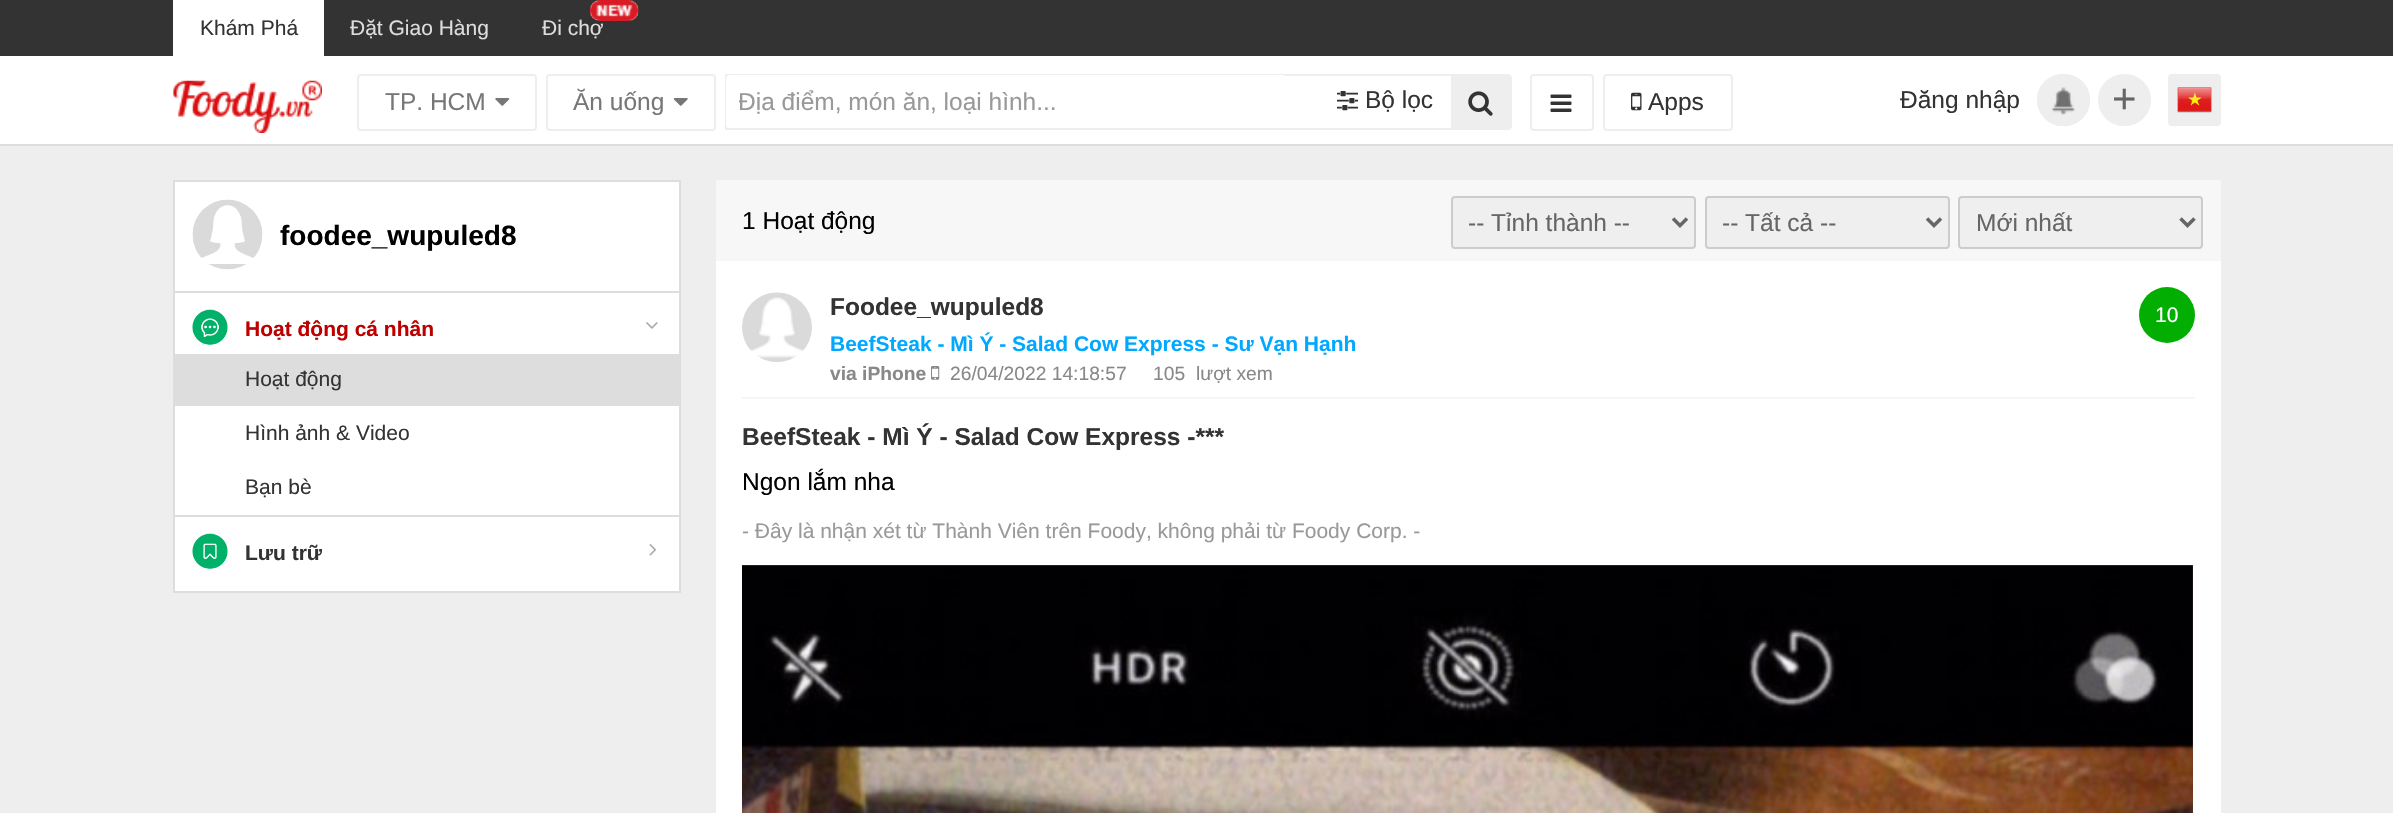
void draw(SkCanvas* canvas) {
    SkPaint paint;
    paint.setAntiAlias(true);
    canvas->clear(0xFFEEEEEE);
    paint.setColor(0xFF333333);
    canvas->drawRect(SkRect::MakeXYWH(0, 0, 2393, 56), paint);
    paint.setColor(0xFFFFFFFF);
    canvas->drawRect(SkRect::MakeXYWH(173, 0, 151, 56), paint);
    SkFont font1(fontMgr->matchFamilyStyle("Liberation Sans", SkFontStyle::Normal()), 21);
    font1.setSubpixel(true);
    paint.setColor(0xFF333333);
    canvas->drawString("Khám Phá", 200, 35, font1, paint);
    paint.setColor(0xFFDDDDDD);
    canvas->drawString("Đặt Giao Hàng", 350, 35, font1, paint);
    canvas->drawString("Đi chợ", 542, 35, font1, paint);
    canvas->drawImageRect(SkImages::DeferredFromEncodedData(SkData::MakeFromFileName("img1.png")), SkRect::MakeXYWH(589, 0, 50, 21), SkSamplingOptions());
    paint.setColor(0xFFFFFFFF);
    canvas->drawRect(SkRect::MakeXYWH(0, 56, 2393, 88), paint);
    paint.setColor(0xFFDDDDDD);
    canvas->drawRect(SkRect::MakeXYWH(0, 144, 2393, 2), paint);
    canvas->drawImageRect(SkImages::DeferredFromEncodedData(SkData::MakeFromFileName("img2.png")), SkRect::MakeXYWH(173, 80, 149, 53), SkSamplingOptions());
    paint.setStyle(SkPaint::kStroke_Style);
    paint.setStrokeWidth(2);
    paint.setColor(0xFFEEEEEE);
    canvas->drawRoundRect(SkRect::MakeXYWH(358, 75, 178, 55), 3, 3, paint);
    SkFont font2(fontMgr->matchFamilyStyle("Liberation Sans", SkFontStyle::Normal()), 24.5f);
    font2.setSubpixel(true);
    paint.setStyle(SkPaint::kFill_Style);
    paint.setColor(0xFF777777);
    canvas->drawString("TP. HCM", 385, 110, font2, paint);
    canvas->drawImageRect(SkImages::DeferredFromEncodedData(SkData::MakeFromFileName("img3.png")), SkRect::MakeXYWH(495, 98, 15, 8), SkSamplingOptions());
    paint.setStyle(SkPaint::kStroke_Style);
    paint.setColor(0xFFEEEEEE);
    canvas->drawRoundRect(SkRect::MakeXYWH(547, 75, 168, 55), 3, 3, paint);
    paint.setStyle(SkPaint::kFill_Style);
    paint.setColor(0xFF777777);
    canvas->drawString("Ăn uống", 573, 110, font2, paint);
    canvas->drawImageRect(SkImages::DeferredFromEncodedData(SkData::MakeFromFileName("img4.png")), SkRect::MakeXYWH(673, 98, 15, 8), SkSamplingOptions());
    paint.setColor(0xFFEEEEEE);
    canvas->drawRect(SkRect::MakeXYWH(725, 74, 726, 2), paint);
    canvas->drawRect(SkRect::MakeXYWH(725, 128, 726, 2), paint);
    canvas->drawRect(SkRect::MakeXYWH(725, 74, 2, 56), paint);
    paint.setColor(0xFFFFFFFF);
    canvas->drawRoundRect(SkRect::MakeXYWH(726, 75, 560, 53), 4, 4, paint);
    canvas->save();
    canvas->clipRect(SkRect::MakeXYWH(739, 88, 547, 28));
    paint.setColor(0xFF999999);
    canvas->drawString("Địa điểm, món ăn, loại hình...", 738, 110, font2, paint);
    canvas->restore();
    canvas->drawImageRect(SkImages::DeferredFromEncodedData(SkData::MakeFromFileName("img5.png")), SkRect::MakeXYWH(1337, 91, 21, 20), SkSamplingOptions());
    paint.setColor(0xFF333333);
    canvas->drawString("Bộ lọc", 1365, 108, font2, paint);
    paint.setColor(0xFFEEEEEE);
    canvas->drawPath(SkPathBuilder().moveTo(1452, 75).lineTo(1508, 75).cubicTo(1509.5f, 75, 1511, 76.5f, 1511, 78).lineTo(1511, 126).cubicTo(1511, 127.5f, 1509.5f, 129, 1508, 129).lineTo(1452, 129).close().detach(), paint);
    paint.setStyle(SkPaint::kStroke_Style);
    canvas->drawPath(SkPathBuilder().moveTo(1452, 75).lineTo(1508, 75).cubicTo(1509.5f, 75, 1511, 76.5f, 1511, 78).lineTo(1511, 126).cubicTo(1511, 127.5f, 1509.5f, 129, 1508, 129).lineTo(1452, 129).close().detach(), paint);
    canvas->drawImageRect(SkImages::DeferredFromEncodedData(SkData::MakeFromFileName("img6.png")), SkRect::MakeXYWH(1468, 91, 25, 25), SkSamplingOptions());
    canvas->drawRoundRect(SkRect::MakeXYWH(1531, 75, 62, 55), 3, 3, paint);
    canvas->drawImageRect(SkImages::DeferredFromEncodedData(SkData::MakeFromFileName("img7.png")), SkRect::MakeXYWH(1550, 94, 22, 18), SkSamplingOptions());
    canvas->drawRoundRect(SkRect::MakeXYWH(1604, 75, 128, 55), 3, 3, paint);
    canvas->drawImageRect(SkImages::DeferredFromEncodedData(SkData::MakeFromFileName("img8.png")), SkRect::MakeXYWH(1631, 92, 11, 19), SkSamplingOptions());
    paint.setStyle(SkPaint::kFill_Style);
    paint.setColor(0xFF333333);
    canvas->drawString("Apps", 1648, 110, font2, paint);
    canvas->drawString("Đăng nhập", 1900, 108, font2, paint);
    paint.setColor(0xFFEEEEEE);
    canvas->drawRoundRect(SkRect::MakeXYWH(2037, 74, 53, 52), 26, 26, paint);
    canvas->drawImageRect(SkImages::DeferredFromEncodedData(SkData::MakeFromFileName("img9.png")), SkRect::MakeXYWH(2051, 87, 25, 28), SkSamplingOptions());
    paint.setStyle(SkPaint::kStroke_Style);
    canvas->drawRoundRect(SkRect::MakeXYWH(2038, 75, 51, 50), 25, 25, paint);
    paint.setStyle(SkPaint::kFill_Style);
    canvas->drawRoundRect(SkRect::MakeXYWH(2099, 75, 51, 50), 25, 25, paint);
    paint.setStyle(SkPaint::kStroke_Style);
    canvas->drawRoundRect(SkRect::MakeXYWH(2099, 75, 51, 50), 25, 25, paint);
    SkFont font3(fontMgr->matchFamilyStyle("Liberation Sans", SkFontStyle::Normal()), 42);
    font3.setSubpixel(true);
    paint.setStyle(SkPaint::kFill_Style);
    paint.setColor(0xFF666666);
    canvas->drawString("+", 2112, 113, font3, paint);
    paint.setColor(0xFFEEEEEE);
    canvas->drawRoundRect(SkRect::MakeXYWH(2168, 74, 53, 52), 4, 4, paint);
    canvas->drawImageRect(SkImages::DeferredFromEncodedData(SkData::MakeFromFileName("img10.png")), SkRect::MakeXYWH(2177, 87, 35, 26), SkSamplingOptions());
    paint.setColor(0xFFFFFFFF);
    canvas->drawRect(SkRect::MakeXYWH(174, 181, 506, 411), paint);
    paint.setStyle(SkPaint::kStroke_Style);
    paint.setColor(0xFFDDDDDD);
    canvas->drawRect(SkRect::MakeXYWH(174, 181, 506, 411), paint);
    paint.setStyle(SkPaint::kFill_Style);
    canvas->drawRect(SkRect::MakeXYWH(175, 291, 504, 2), paint);
    canvas->drawImageRect(SkImages::DeferredFromEncodedData(SkData::MakeFromFileName("img11.png")), SkRect::MakeXYWH(192, 199, 71, 71), SkSamplingOptions());
    SkFont font4(fontMgr->matchFamilyStyle("Liberation Sans", SkFontStyle::Bold()), 28);
    font4.setSubpixel(true);
    paint.setColor(0xFF000000);
    canvas->drawString("foodee_wupuled8", 280, 245, font4, paint);
    canvas->drawImageRect(SkImages::DeferredFromEncodedData(SkData::MakeFromFileName("img12.png")), SkRect::MakeXYWH(192, 309, 36, 36), SkSamplingOptions());
    SkFont font5(fontMgr->matchFamilyStyle("Liberation Sans", SkFontStyle::Bold()), 21);
    font5.setSubpixel(true);
    paint.setColor(0xFFBC0000);
    canvas->drawString("Hoạt động cá nhân", 245, 336, font5, paint);
    canvas->drawImageRect(SkImages::DeferredFromEncodedData(SkData::MakeFromFileName("img13.png")), SkRect::MakeXYWH(646, 322, 12, 7), SkSamplingOptions());
    paint.setColor(0xFFDDDDDD);
    canvas->drawRect(SkRect::MakeXYWH(175, 354, 504, 52), paint);
    paint.setColor(0xFF333333);
    canvas->drawString("Hoạt động", 245, 386, font1, paint);
    canvas->drawString("Hình ảnh & Video", 245, 440, font1, paint);
    canvas->drawString("Bạn bè", 245, 494, font1, paint);
    paint.setColor(0xFFDDDDDD);
    canvas->drawRect(SkRect::MakeXYWH(175, 515, 504, 2), paint);
    canvas->drawImageRect(SkImages::DeferredFromEncodedData(SkData::MakeFromFileName("img14.png")), SkRect::MakeXYWH(192, 533, 36, 36), SkSamplingOptions());
    paint.setColor(0xFF333333);
    canvas->drawString("Lưu trữ", 245, 560, font5, paint);
    canvas->drawImageRect(SkImages::DeferredFromEncodedData(SkData::MakeFromFileName("img15.png")), SkRect::MakeXYWH(649, 544, 8, 12), SkSamplingOptions());
    paint.setColor(0xFFF7F7F7);
    canvas->drawRect(SkRect::MakeXYWH(716, 180, 1505, 81), paint);
    paint.setColor(0xFF000000);
    canvas->drawString("1 Hoạt động", 742, 229, font2, paint);
    paint.setColor(0xFFEFEFEF);
    canvas->drawRoundRect(SkRect::MakeXYWH(1452, 197, 243, 51), 3, 3, paint);
    paint.setStyle(SkPaint::kStroke_Style);
    paint.setColor(0xFFCCCCCC);
    canvas->drawRoundRect(SkRect::MakeXYWH(1452, 197, 243, 51), 3, 3, paint);
    paint.setStrokeWidth(3.5f);
    paint.setColor(0xFF666666);
    canvas->drawPath(SkPathBuilder().moveTo(1673, 218.5f).lineTo(1680, 225.5f).lineTo(1687, 218.5f).detach(), paint);
    paint.setStyle(SkPaint::kFill_Style);
    canvas->drawString("-- Tỉnh thành --", 1468, 231, font2, paint);
    paint.setColor(0xFFEFEFEF);
    canvas->drawRoundRect(SkRect::MakeXYWH(1706, 197, 243, 51), 3, 3, paint);
    paint.setStyle(SkPaint::kStroke_Style);
    paint.setStrokeWidth(2);
    paint.setColor(0xFFCCCCCC);
    canvas->drawRoundRect(SkRect::MakeXYWH(1706, 197, 243, 51), 3, 3, paint);
    paint.setStrokeWidth(3.5f);
    paint.setColor(0xFF666666);
    canvas->drawPath(SkPathBuilder().moveTo(1927, 218.5f).lineTo(1934, 225.5f).lineTo(1941, 218.5f).detach(), paint);
    paint.setStyle(SkPaint::kFill_Style);
    canvas->drawString("-- Tất cả --", 1722, 231, font2, paint);
    paint.setColor(0xFFEFEFEF);
    canvas->drawRoundRect(SkRect::MakeXYWH(1959, 197, 243, 51), 3, 3, paint);
    paint.setStyle(SkPaint::kStroke_Style);
    paint.setStrokeWidth(2);
    paint.setColor(0xFFCCCCCC);
    canvas->drawRoundRect(SkRect::MakeXYWH(1959, 197, 243, 51), 3, 3, paint);
    paint.setStrokeWidth(3.5f);
    paint.setColor(0xFF666666);
    canvas->drawPath(SkPathBuilder().moveTo(2180.5f, 218.5f).lineTo(2187.5f, 225.5f).lineTo(2194.5f, 218.5f).detach(), paint);
    paint.setStyle(SkPaint::kFill_Style);
    canvas->drawString("Mới nhất", 1976, 231, font2, paint);
    paint.setColor(0xFFFFFFFF);
    canvas->drawRect(SkRect::MakeXYWH(716, 261, 1505, 552), paint);
    paint.setColor(0xFFF6F6F6);
    canvas->drawRect(SkRect::MakeXYWH(742, 397, 1453, 2), paint);
    canvas->drawImageRect(SkImages::DeferredFromEncodedData(SkData::MakeFromFileName("img16.png")), SkRect::MakeXYWH(742, 292, 70, 70), SkSamplingOptions());
    SkFont font6(fontMgr->matchFamilyStyle("Liberation Sans", SkFontStyle::Bold()), 24.5f);
    font6.setSubpixel(true);
    paint.setColor(0xFF333333);
    canvas->drawString("Foodee_wupuled8", 830, 315, font6, paint);
    paint.setColor(0xFF00A8FF);
    canvas->drawString("BeefSteak - Mì Ý - Salad Cow Express - Sư Vạn Hạnh", 830, 351, font5, paint);
    SkFont font7(fontMgr->matchFamilyStyle("Liberation Sans", SkFontStyle::Bold()), 19.25f);
    font7.setSubpixel(true);
    paint.setColor(0xFF888888);
    canvas->drawString("via iPhone", 830, 380, font7, paint);
    canvas->drawImageRect(SkImages::DeferredFromEncodedData(SkData::MakeFromFileName("img17.png")), SkRect::MakeXYWH(931, 366, 9, 14), SkSamplingOptions());
    SkFont font8(fontMgr->matchFamilyStyle("Liberation Sans", SkFontStyle::Normal()), 19.25f);
    font8.setSubpixel(true);
    canvas->drawString("26/04/2022 14:18:57", 950, 380, font8, paint);
    canvas->drawString("105", 1153, 380, font8, paint);
    canvas->drawString("lượt xem", 1196, 380, font8, paint);
    paint.setColor(0xFF03AE03);
    canvas->drawCircle(2167, 315, 28, paint);
    paint.setColor(0xFFFFFFFF);
    canvas->drawString("10", 2155, 322, font1, paint);
    paint.setColor(0xFF333333);
    canvas->drawString("BeefSteak - Mì Ý - Salad Cow Express -***", 742, 445, font6, paint);
    paint.setColor(0xFF000000);
    canvas->drawString("Ngon lắm nha", 742, 490, font2, paint);
    paint.setColor(0xFF999999);
    canvas->drawString("- Đây là nhận xét từ Thành Viên trên Foody, không phải từ Foody Corp. -", 742, 538, font1, paint);
    paint.setColor(0xFF5C4433);
    canvas->drawRect(SkRect::MakeXYWH(742, 565, 1451, 248), paint);
    canvas->drawImageRect(SkImages::DeferredFromEncodedData(SkData::MakeFromFileName("img18.png")), SkRect::MakeXYWH(742, 565, 1451, 248), SkSamplingOptions());
}
